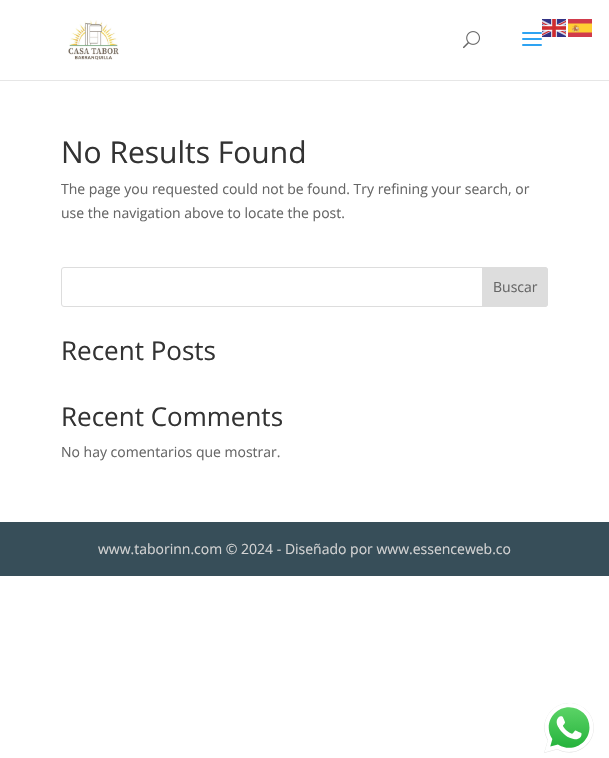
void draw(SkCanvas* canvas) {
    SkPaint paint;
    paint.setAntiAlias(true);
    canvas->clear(0xFFFFFFFF);
    canvas->drawImageRect(SkImages::DeferredFromEncodedData(SkData::MakeFromFileName("img1.png")), SkRect::MakeXYWH(542, 19, 24, 18), SkSamplingOptions());
    canvas->drawImageRect(SkImages::DeferredFromEncodedData(SkData::MakeFromFileName("img2.png")), SkRect::MakeXYWH(568, 19, 24, 18), SkSamplingOptions());
    paint.setColor(0xFFE6E6E6);
    canvas->drawRect(SkRect::MakeXYWH(0, 80, 609, 1), paint);
    canvas->drawImageRect(SkImages::DeferredFromEncodedData(SkData::MakeFromFileName("img3.png")), SkRect::MakeXYWH(68, 20, 51, 40), SkSamplingOptions());
    canvas->drawImageRect(SkImages::DeferredFromEncodedData(SkData::MakeFromFileName("img4.png")), SkRect::MakeXYWH(463, 31, 17, 18), SkSamplingOptions());
    canvas->drawImageRect(SkImages::DeferredFromEncodedData(SkData::MakeFromFileName("img5.png")), SkRect::MakeXYWH(522, 32, 20, 14), SkSamplingOptions());
    SkFont font1(fontMgr->matchFamilyStyle("Open Sans", SkFontStyle::Normal()), 30);
    font1.setSubpixel(true);
    paint.setColor(0xFF333333);
    canvas->drawString("No Results Found", 61, 163, font1, paint);
    SkFont font2(fontMgr->matchFamilyStyle("Open Sans", SkFontStyle::Normal()), 14);
    font2.setSubpixel(true);
    paint.setColor(0xFF666666);
    canvas->drawString("The page you requested could not be found. Try refining your search, or", 61, 194, font2, paint);
    canvas->drawString("use the navigation above to locate the post.", 61, 218, font2, paint);
    paint.setStyle(SkPaint::kStroke_Style);
    paint.setStrokeWidth(1);
    paint.setColor(0xFFDDDDDD);
    canvas->drawRoundRect(SkRect::MakeXYWH(61.5f, 267.5f, 486, 39), 2.5f, 2.5f, paint);
    paint.setStyle(SkPaint::kFill_Style);
    canvas->drawPath(SkPathBuilder().moveTo(482.5f, 267.5f).lineTo(545, 267.5f).cubicTo(546.5f, 267.5f, 547.5f, 268.5f, 547.5f, 270).lineTo(547.5f, 304).cubicTo(547.5f, 305.5f, 546.5f, 306.5f, 545, 306.5f).lineTo(482.5f, 306.5f).close().detach(), paint);
    paint.setStyle(SkPaint::kStroke_Style);
    canvas->drawPath(SkPathBuilder().moveTo(482.5f, 267.5f).lineTo(545, 267.5f).cubicTo(546.5f, 267.5f, 547.5f, 268.5f, 547.5f, 270).lineTo(547.5f, 304).cubicTo(547.5f, 305.5f, 546.5f, 306.5f, 545, 306.5f).lineTo(482.5f, 306.5f).close().detach(), paint);
    paint.setStyle(SkPaint::kFill_Style);
    paint.setColor(0xFF666666);
    canvas->drawString("Buscar", 493, 292, font2, paint);
    SkFont font3(fontMgr->matchFamilyStyle("Open Sans", SkFontStyle::Normal()), 26);
    font3.setSubpixel(true);
    paint.setColor(0xFF333333);
    canvas->drawString("Recent Posts", 61, 360, font3, paint);
    canvas->drawString("Recent Comments", 61, 426, font3, paint);
    paint.setColor(0xFF666666);
    canvas->drawString("No hay comentarios que mostrar.", 61, 457, font2, paint);
    paint.setColor(0xFF374E59);
    canvas->drawRect(SkRect::MakeXYWH(0, 522, 609, 54), paint);
    paint.setColor(0xFFD3D3D3);
    canvas->drawString("www.taborinn.com © 2024 - Diseñado por www.essenceweb.co", 98, 554, font2, paint);
    canvas->drawImageRect(SkImages::DeferredFromEncodedData(SkData::MakeFromFileName("img6.png")), SkRect::MakeXYWH(544, 703, 50, 50), SkSamplingOptions());
}
